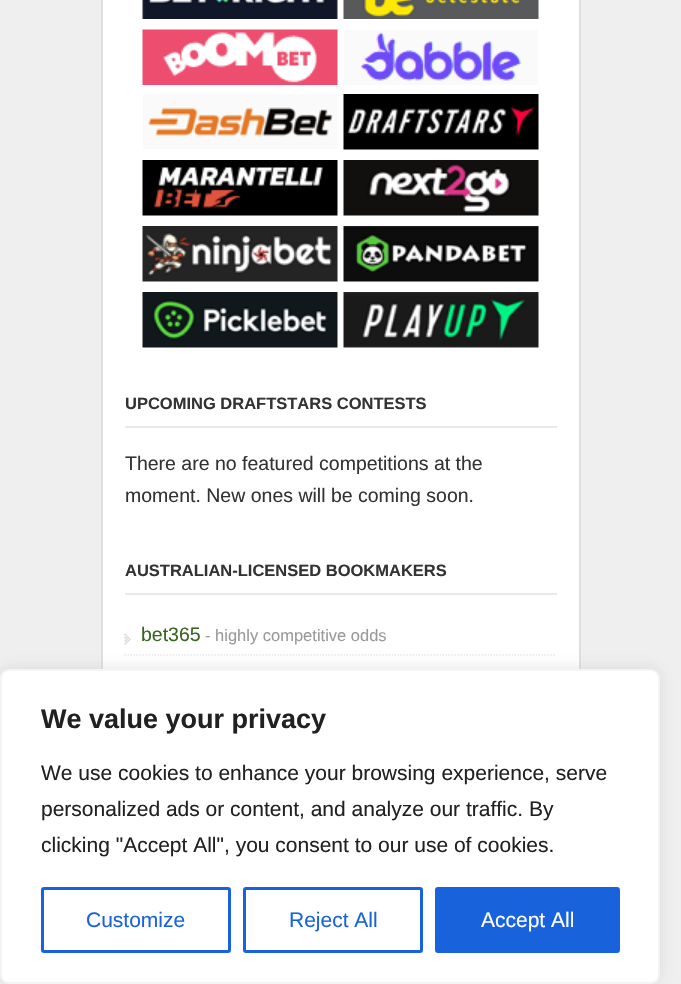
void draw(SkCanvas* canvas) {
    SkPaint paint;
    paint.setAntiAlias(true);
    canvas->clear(0xFFEFEFEF);
    paint.setColor(0xFFFFFFFF);
    canvas->drawRect(SkRect::MakeXYWH(103, 0, 476, 669), paint);
    paint.setStyle(SkPaint::kStroke_Style);
    paint.setStrokeWidth(2);
    paint.setColor(0xFFDFDFDF);
    canvas->drawRect(SkRect::MakeXYWH(102, -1, 478, 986), paint);
    canvas->drawImageRect(SkImages::DeferredFromEncodedData(SkData::MakeFromFileName("img1.png")), SkRect::MakeXYWH(142, 0, 196, 19), SkSamplingOptions());
    canvas->drawImageRect(SkImages::DeferredFromEncodedData(SkData::MakeFromFileName("img2.png")), SkRect::MakeXYWH(343, 0, 196, 19), SkSamplingOptions());
    canvas->drawImageRect(SkImages::DeferredFromEncodedData(SkData::MakeFromFileName("img3.png")), SkRect::MakeXYWH(142, 29, 196, 56), SkSamplingOptions());
    canvas->drawImageRect(SkImages::DeferredFromEncodedData(SkData::MakeFromFileName("img4.png")), SkRect::MakeXYWH(344, 30, 194, 55), SkSamplingOptions());
    canvas->drawImageRect(SkImages::DeferredFromEncodedData(SkData::MakeFromFileName("img5.png")), SkRect::MakeXYWH(143, 94, 194, 55), SkSamplingOptions());
    canvas->drawImageRect(SkImages::DeferredFromEncodedData(SkData::MakeFromFileName("img6.png")), SkRect::MakeXYWH(343, 94, 196, 56), SkSamplingOptions());
    canvas->drawImageRect(SkImages::DeferredFromEncodedData(SkData::MakeFromFileName("img7.png")), SkRect::MakeXYWH(142, 160, 196, 56), SkSamplingOptions());
    canvas->drawImageRect(SkImages::DeferredFromEncodedData(SkData::MakeFromFileName("img8.png")), SkRect::MakeXYWH(343, 160, 196, 56), SkSamplingOptions());
    canvas->drawImageRect(SkImages::DeferredFromEncodedData(SkData::MakeFromFileName("img9.png")), SkRect::MakeXYWH(142, 226, 196, 56), SkSamplingOptions());
    canvas->drawImageRect(SkImages::DeferredFromEncodedData(SkData::MakeFromFileName("img10.png")), SkRect::MakeXYWH(343, 226, 196, 56), SkSamplingOptions());
    canvas->drawImageRect(SkImages::DeferredFromEncodedData(SkData::MakeFromFileName("img11.png")), SkRect::MakeXYWH(142, 292, 196, 56), SkSamplingOptions());
    canvas->drawImageRect(SkImages::DeferredFromEncodedData(SkData::MakeFromFileName("img12.png")), SkRect::MakeXYWH(343, 292, 196, 56), SkSamplingOptions());
    paint.setStyle(SkPaint::kFill_Style);
    paint.setColor(0xFFE9E9E9);
    canvas->drawRect(SkRect::MakeXYWH(125, 426, 432, 2), paint);
    SkFont font1(fontMgr->matchFamilyStyle("Liberation Sans", SkFontStyle::Bold()), 16.5f);
    font1.setSubpixel(true);
    paint.setColor(0xFF333333);
    canvas->drawString("UPCOMING DRAFTSTARS CONTESTS", 125, 409, font1, paint);
    SkFont font2(fontMgr->matchFamilyStyle("Liberation Sans", SkFontStyle::Normal()), 19.5f);
    font2.setSubpixel(true);
    canvas->drawString("There are no featured competitions at the", 125, 470, font2, paint);
    canvas->drawString("moment. New ones will be coming soon.", 125, 502, font2, paint);
    paint.setColor(0xFFE9E9E9);
    canvas->drawRect(SkRect::MakeXYWH(125, 593, 432, 2), paint);
    paint.setColor(0xFF333333);
    canvas->drawString("AUSTRALIAN-LICENSED BOOKMAKERS", 125, 576, font1, paint);
    canvas->drawImageRect(SkImages::DeferredFromEncodedData(SkData::MakeFromFileName("img13.png")), SkRect::MakeXYWH(124, 634, 7, 11), SkSamplingOptions());
    paint.setStyle(SkPaint::kStroke_Style);
    paint.setStrokeWidth(1.5f);
    paint.setColor(0xFFE9E9E9);
    paint.setPathEffect(SkDashPathEffect::Make({{1.5f, 1.5f}}, 0));
    canvas->drawPath(SkPathBuilder().moveTo(124.5f, 655).lineTo(556.5f, 655).detach(), paint);
    paint.setPathEffect(nullptr);
    paint.setStyle(SkPaint::kFill_Style);
    paint.setColor(0xFF386622);
    canvas->drawString("bet365", 141, 641, font2, paint);
    SkFont font3(fontMgr->matchFamilyStyle("Liberation Sans", SkFontStyle::Normal()), 16.5f);
    font3.setSubpixel(true);
    paint.setColor(0xFF999999);
    canvas->drawString("- highly competitive odds", 205, 641, font3, paint);
    paint.setColor(0x4DACABAB);
    paint.setMaskFilter(SkMaskFilter::MakeBlur(kNormal_SkBlurStyle, 7.5f));
    canvas->drawRoundRect(SkRect::MakeXYWH(0, 668, 660, 315), 9, 9, paint);
    paint.setMaskFilter(nullptr);
    paint.setColor(0xFFFFFFFF);
    canvas->drawRoundRect(SkRect::MakeXYWH(1, 670, 658, 313), 8, 8, paint);
    paint.setStyle(SkPaint::kStroke_Style);
    paint.setStrokeWidth(2);
    paint.setColor(0xFFF4F4F4);
    canvas->drawRoundRect(SkRect::MakeXYWH(1, 670, 658, 313), 8, 8, paint);
    SkFont font4(fontMgr->matchFamilyStyle("Liberation Sans", SkFontStyle::Bold()), 27);
    font4.setSubpixel(true);
    paint.setStyle(SkPaint::kFill_Style);
    paint.setColor(0xFF212121);
    canvas->drawString("We value your privacy", 41, 728, font4, paint);
    SkFont font5(fontMgr->matchFamilyStyle("Liberation Sans", SkFontStyle::Normal()), 21);
    font5.setSubpixel(true);
    canvas->drawString("We use cookies to enhance your browsing experience, serve", 41, 780, font5, paint);
    canvas->drawString("personalized ads or content, and analyze our traffic. By", 41, 816, font5, paint);
    canvas->drawString("clicking \"Accept All\", you consent to our use of cookies.", 41, 852, font5, paint);
    paint.setStyle(SkPaint::kStroke_Style);
    paint.setStrokeWidth(3);
    paint.setColor(0xFF1863DC);
    canvas->drawRoundRect(SkRect::MakeXYWH(42.5f, 888.5f, 187, 63), 1.5f, 1.5f, paint);
    paint.setStyle(SkPaint::kFill_Style);
    canvas->drawString("Customize", 86, 927, font5, paint);
    paint.setStyle(SkPaint::kStroke_Style);
    canvas->drawRoundRect(SkRect::MakeXYWH(244.5f, 888.5f, 177, 63), 1.5f, 1.5f, paint);
    paint.setStyle(SkPaint::kFill_Style);
    canvas->drawString("Reject All", 289, 927, font5, paint);
    canvas->drawRoundRect(SkRect::MakeXYWH(436.5f, 888.5f, 182, 63), 1.5f, 1.5f, paint);
    paint.setStyle(SkPaint::kStroke_Style);
    canvas->drawRoundRect(SkRect::MakeXYWH(436.5f, 888.5f, 182, 63), 1.5f, 1.5f, paint);
    paint.setStyle(SkPaint::kFill_Style);
    paint.setColor(0xFFFFFFFF);
    canvas->drawString("Accept All", 481, 927, font5, paint);
}
